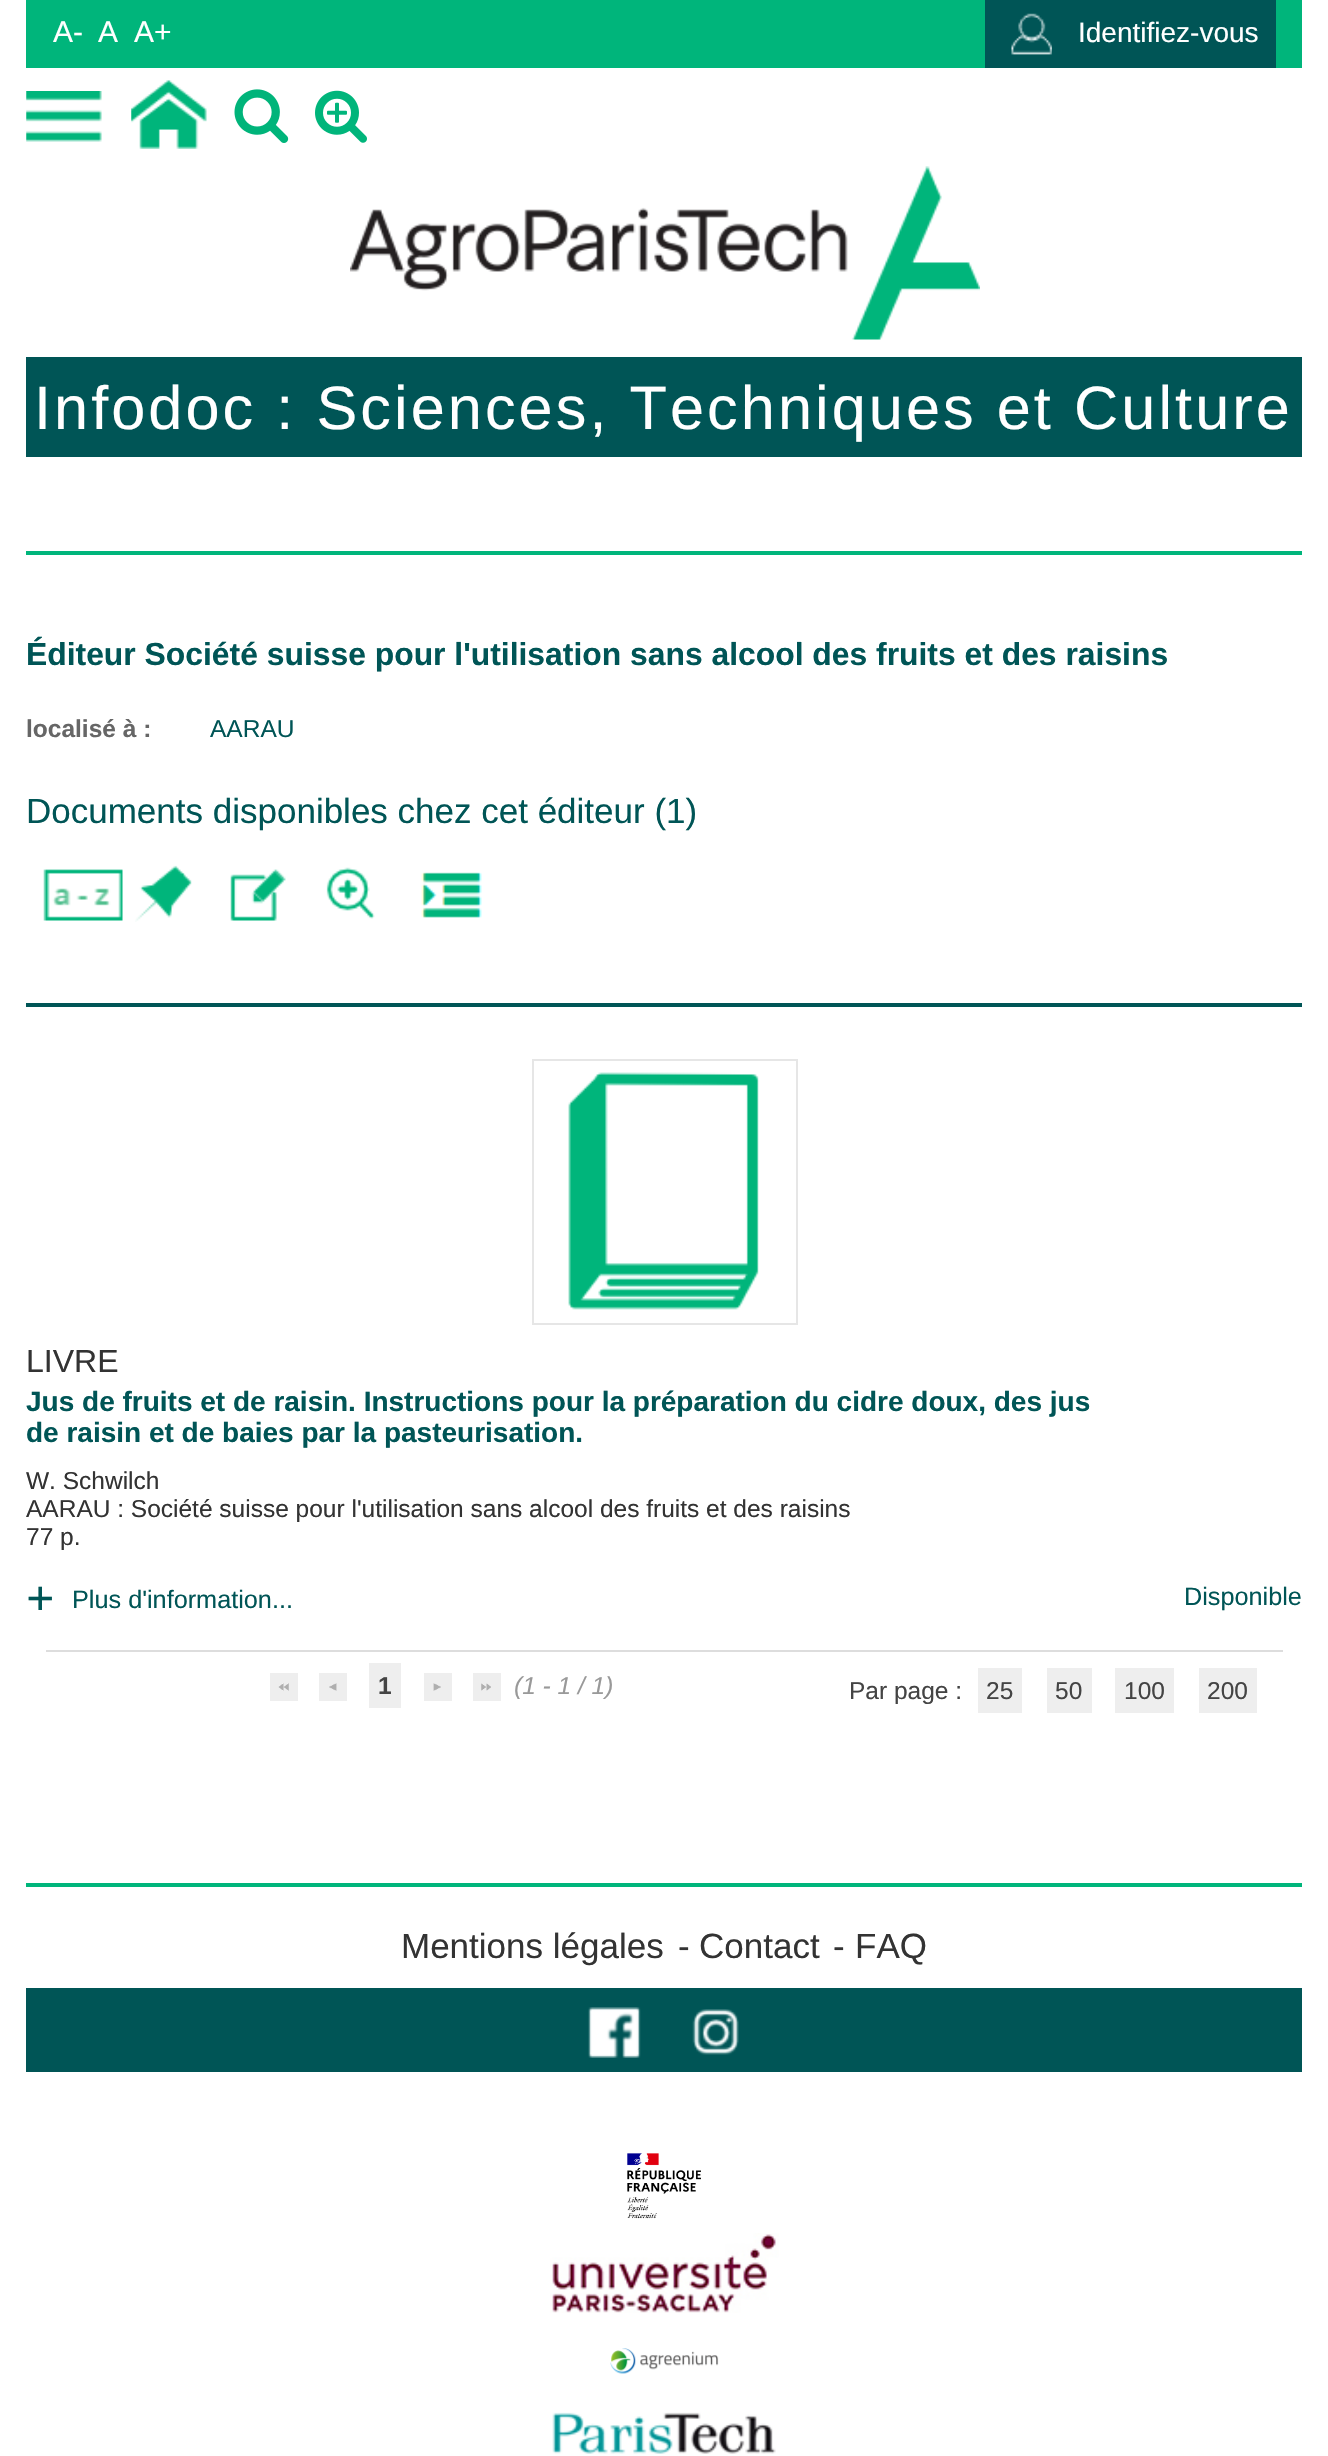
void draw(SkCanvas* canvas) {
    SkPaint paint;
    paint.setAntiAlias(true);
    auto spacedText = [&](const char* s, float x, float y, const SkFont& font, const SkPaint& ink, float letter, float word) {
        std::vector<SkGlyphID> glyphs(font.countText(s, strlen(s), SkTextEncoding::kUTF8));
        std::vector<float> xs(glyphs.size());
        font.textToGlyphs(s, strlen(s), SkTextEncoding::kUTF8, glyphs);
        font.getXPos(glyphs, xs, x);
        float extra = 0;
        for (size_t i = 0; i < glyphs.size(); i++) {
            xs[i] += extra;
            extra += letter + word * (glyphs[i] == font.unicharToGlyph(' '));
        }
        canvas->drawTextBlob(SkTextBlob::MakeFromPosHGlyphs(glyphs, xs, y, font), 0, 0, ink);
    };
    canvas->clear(0xFFFFFFFF);
    paint.setColor(0xFF00B57B);
    canvas->drawRect(SkRect::MakeXYWH(26, 0, 1276, 68), paint);
    SkFont font1(fontMgr->matchFamilyStyle("Liberation Sans", SkFontStyle::Normal()), 30);
    font1.setSubpixel(true);
    paint.setColor(0xFFFFFFFF);
    canvas->drawString("A-", 53, 42, font1, paint);
    canvas->drawString("A", 98, 42, font1, paint);
    canvas->drawString("A+", 134, 42, font1, paint);
    paint.setColor(0xFF005556);
    canvas->drawRect(SkRect::MakeXYWH(985, 0, 291, 68), paint);
    canvas->drawImageRect(SkImages::DeferredFromEncodedData(SkData::MakeFromFileName("img1.png")), SkRect::MakeXYWH(1011, 13, 41, 42), SkSamplingOptions());
    SkFont font2(fontMgr->matchFamilyStyle("Liberation Sans", SkFontStyle::Normal()), 28);
    font2.setSubpixel(true);
    paint.setColor(0xFFFFFFFF);
    canvas->drawString("Identifiez-vous", 1078, 42, font2, paint);
    canvas->drawImageRect(SkImages::DeferredFromEncodedData(SkData::MakeFromFileName("img2.png")), SkRect::MakeXYWH(26, 91, 76, 51), SkSamplingOptions());
    canvas->drawImageRect(SkImages::DeferredFromEncodedData(SkData::MakeFromFileName("img3.png")), SkRect::MakeXYWH(131, 80, 76, 69), SkSamplingOptions());
    canvas->drawImageRect(SkImages::DeferredFromEncodedData(SkData::MakeFromFileName("img4.png")), SkRect::MakeXYWH(234, 89, 55, 54), SkSamplingOptions());
    canvas->drawImageRect(SkImages::DeferredFromEncodedData(SkData::MakeFromFileName("img5.png")), SkRect::MakeXYWH(315, 90, 52, 53), SkSamplingOptions());
    canvas->drawImageRect(SkImages::DeferredFromEncodedData(SkData::MakeFromFileName("img6.png")), SkRect::MakeXYWH(350, 166, 630, 174), SkSamplingOptions());
    paint.setColor(0xFF005556);
    canvas->drawRect(SkRect::MakeXYWH(26, 357, 1276, 100), paint);
    SkFont font3(fontMgr->matchFamilyStyle("Liberation Sans", SkFontStyle::Normal()), 61.25f);
    font3.setSubpixel(true);
    paint.setColor(0xFFFFFFFF);
    spacedText("Infodoc : Sciences, Techniques et Culture", 34, 429, font3, paint, 3.05f, 0);
    paint.setColor(0xFF00B57B);
    canvas->drawRect(SkRect::MakeXYWH(26, 551, 1276, 4), paint);
    SkFont font4(fontMgr->matchFamilyStyle("Liberation Sans", SkFontStyle::Bold()), 31.85f);
    font4.setSubpixel(true);
    paint.setColor(0xFF005556);
    canvas->drawString("Éditeur Société suisse pour l'utilisation sans alcool des fruits et des raisins", 26, 665, font4, paint);
    SkFont font5(fontMgr->matchFamilyStyle("Liberation Sans", SkFontStyle::Bold()), 24.5f);
    font5.setSubpixel(true);
    paint.setColor(0xFF666666);
    canvas->drawString("localisé à :", 26, 737, font5, paint);
    SkFont font6(fontMgr->matchFamilyStyle("Liberation Sans", SkFontStyle::Normal()), 24.5f);
    font6.setSubpixel(true);
    paint.setColor(0xFF005556);
    canvas->drawString("AARAU", 210, 737, font6, paint);
    SkFont font7(fontMgr->matchFamilyStyle("Liberation Sans", SkFontStyle::Normal()), 35);
    font7.setSubpixel(true);
    canvas->drawString("Documents disponibles chez cet éditeur (1)", 26, 823, font7, paint);
    canvas->drawImageRect(SkImages::DeferredFromEncodedData(SkData::MakeFromFileName("img7.png")), SkRect::MakeXYWH(43, 869, 80, 52), SkSamplingOptions());
    canvas->drawImageRect(SkImages::DeferredFromEncodedData(SkData::MakeFromFileName("img8.png")), SkRect::MakeXYWH(135, 865, 57, 57), SkSamplingOptions());
    canvas->drawImageRect(SkImages::DeferredFromEncodedData(SkData::MakeFromFileName("img9.png")), SkRect::MakeXYWH(230, 869, 56, 52), SkSamplingOptions());
    canvas->drawImageRect(SkImages::DeferredFromEncodedData(SkData::MakeFromFileName("img10.png")), SkRect::MakeXYWH(326, 867, 49, 52), SkSamplingOptions());
    canvas->drawImageRect(SkImages::DeferredFromEncodedData(SkData::MakeFromFileName("img11.png")), SkRect::MakeXYWH(421, 872, 61, 46), SkSamplingOptions());
    canvas->drawRect(SkRect::MakeXYWH(26, 1003, 1276, 4), paint);
    paint.setStyle(SkPaint::kStroke_Style);
    paint.setStrokeWidth(2);
    paint.setColor(0xFFE6E6E6);
    canvas->drawRect(SkRect::MakeXYWH(533, 1060, 264, 264), paint);
    canvas->drawImageRect(SkImages::DeferredFromEncodedData(SkData::MakeFromFileName("img12.png")), SkRect::MakeXYWH(568, 1072, 191, 238), SkSamplingOptions());
    SkFont font8(fontMgr->matchFamilyStyle("Liberation Sans", SkFontStyle::Normal()), 32);
    font8.setSubpixel(true);
    paint.setStyle(SkPaint::kFill_Style);
    paint.setColor(0xFF333333);
    canvas->drawString("LIVRE", 26, 1372, font8, paint);
    SkFont font9(fontMgr->matchFamilyStyle("Liberation Sans", SkFontStyle::Bold()), 28);
    font9.setSubpixel(true);
    paint.setColor(0xFF005556);
    canvas->drawString("Jus de fruits et de raisin. Instructions pour la préparation du cidre doux, des jus", 26, 1411, font9, paint);
    canvas->drawString("de raisin et de baies par la pasteurisation.", 26, 1442, font9, paint);
    paint.setColor(0xFF333333);
    canvas->drawString("W. Schwilch", 26, 1489, font6, paint);
    canvas->drawString("AARAU : Société suisse pour l'utilisation sans alcool des fruits et des raisins", 26, 1517, font6, paint);
    canvas->drawString("77 p.", 26, 1545, font6, paint);
    SkFont font10(fontMgr->matchFamilyStyle("Liberation Serif", SkFontStyle::Bold()), 50);
    font10.setSubpixel(true);
    paint.setColor(0xFF005556);
    canvas->drawString("+", 26, 1615, font10, paint);
    SkFont font11(fontMgr->matchFamilyStyle("Liberation Sans", SkFontStyle::Normal()), 25.25f);
    font11.setSubpixel(true);
    canvas->drawString("Plus d'information...", 72, 1608, font11, paint);
    canvas->drawString("Disponible", 1184, 1605, font11, paint);
    paint.setColor(0xFFDDDDDD);
    canvas->drawRect(SkRect::MakeXYWH(46, 1650, 1237, 2), paint);
    paint.setColor(0xFFEEEEEE);
    canvas->drawRect(SkRect::MakeXYWH(270, 1673, 28, 28), paint);
    canvas->drawImageRect(SkImages::DeferredFromEncodedData(SkData::MakeFromFileName("img13.png")), SkRect::MakeXYWH(278, 1683, 11, 8), SkSamplingOptions());
    canvas->drawRect(SkRect::MakeXYWH(319, 1673, 28, 28), paint);
    canvas->drawImageRect(SkImages::DeferredFromEncodedData(SkData::MakeFromFileName("img14.png")), SkRect::MakeXYWH(329, 1683, 8, 8), SkSamplingOptions());
    canvas->drawRect(SkRect::MakeXYWH(369, 1663, 32, 45), paint);
    paint.setColor(0xFF444444);
    canvas->drawString("1", 378, 1694, font5, paint);
    paint.setColor(0xFFEEEEEE);
    canvas->drawRect(SkRect::MakeXYWH(424, 1673, 28, 28), paint);
    canvas->drawImageRect(SkImages::DeferredFromEncodedData(SkData::MakeFromFileName("img15.png")), SkRect::MakeXYWH(433, 1683, 8, 8), SkSamplingOptions());
    canvas->drawRect(SkRect::MakeXYWH(473, 1673, 28, 28), paint);
    canvas->drawImageRect(SkImages::DeferredFromEncodedData(SkData::MakeFromFileName("img16.png")), SkRect::MakeXYWH(481, 1683, 10, 8), SkSamplingOptions());
    SkFont font12(fontMgr->matchFamilyStyle("Liberation Sans", SkFontStyle::Italic()), 24.5f);
    font12.setSubpixel(true);
    paint.setColor(0xFF999999);
    canvas->drawString("(1 - 1 / 1)", 514, 1694, font12, paint);
    paint.setColor(0xFF444444);
    canvas->drawString("Par page :", 849, 1699, font6, paint);
    paint.setColor(0xFFEEEEEE);
    canvas->drawRect(SkRect::MakeXYWH(978, 1668, 44, 45), paint);
    paint.setColor(0xFF444444);
    canvas->drawString("25", 986, 1699, font6, paint);
    paint.setColor(0xFFEEEEEE);
    canvas->drawRect(SkRect::MakeXYWH(1047, 1668, 45, 45), paint);
    paint.setColor(0xFF444444);
    canvas->drawString("50", 1055, 1699, font6, paint);
    paint.setColor(0xFFEEEEEE);
    canvas->drawRect(SkRect::MakeXYWH(1115, 1668, 59, 45), paint);
    paint.setColor(0xFF444444);
    canvas->drawString("100", 1124, 1699, font6, paint);
    paint.setColor(0xFFEEEEEE);
    canvas->drawRect(SkRect::MakeXYWH(1199, 1668, 58, 45), paint);
    paint.setColor(0xFF444444);
    canvas->drawString("200", 1207, 1699, font6, paint);
    paint.setColor(0xFF00B57B);
    canvas->drawRect(SkRect::MakeXYWH(26, 1883, 1276, 4), paint);
    paint.setColor(0xFF333333);
    canvas->drawString("Mentions légales", 401, 1958, font7, paint);
    canvas->drawString("-", 678, 1958, font7, paint);
    canvas->drawString("Contact", 699, 1958, font7, paint);
    canvas->drawString("-", 833, 1958, font7, paint);
    canvas->drawString("FAQ", 855, 1958, font7, paint);
    paint.setColor(0xFF005556);
    canvas->drawRect(SkRect::MakeXYWH(26, 1988, 1276, 84), paint);
    canvas->drawImageRect(SkImages::DeferredFromEncodedData(SkData::MakeFromFileName("img17.png")), SkRect::MakeXYWH(588, 2007, 53, 51), SkSamplingOptions());
    canvas->drawImageRect(SkImages::DeferredFromEncodedData(SkData::MakeFromFileName("img18.png")), SkRect::MakeXYWH(692, 2009, 47, 46), SkSamplingOptions());
    canvas->drawImageRect(SkImages::DeferredFromEncodedData(SkData::MakeFromFileName("img19.png")), SkRect::MakeXYWH(627, 2153, 74, 66), SkSamplingOptions());
    canvas->drawImageRect(SkImages::DeferredFromEncodedData(SkData::MakeFromFileName("img20.png")), SkRect::MakeXYWH(550, 2233, 229, 80), SkSamplingOptions());
    canvas->drawImageRect(SkImages::DeferredFromEncodedData(SkData::MakeFromFileName("img21.png")), SkRect::MakeXYWH(610, 2348, 109, 26), SkSamplingOptions());
    canvas->drawImageRect(SkImages::DeferredFromEncodedData(SkData::MakeFromFileName("img22.png")), SkRect::MakeXYWH(552, 2412, 224, 42), SkSamplingOptions());
}
